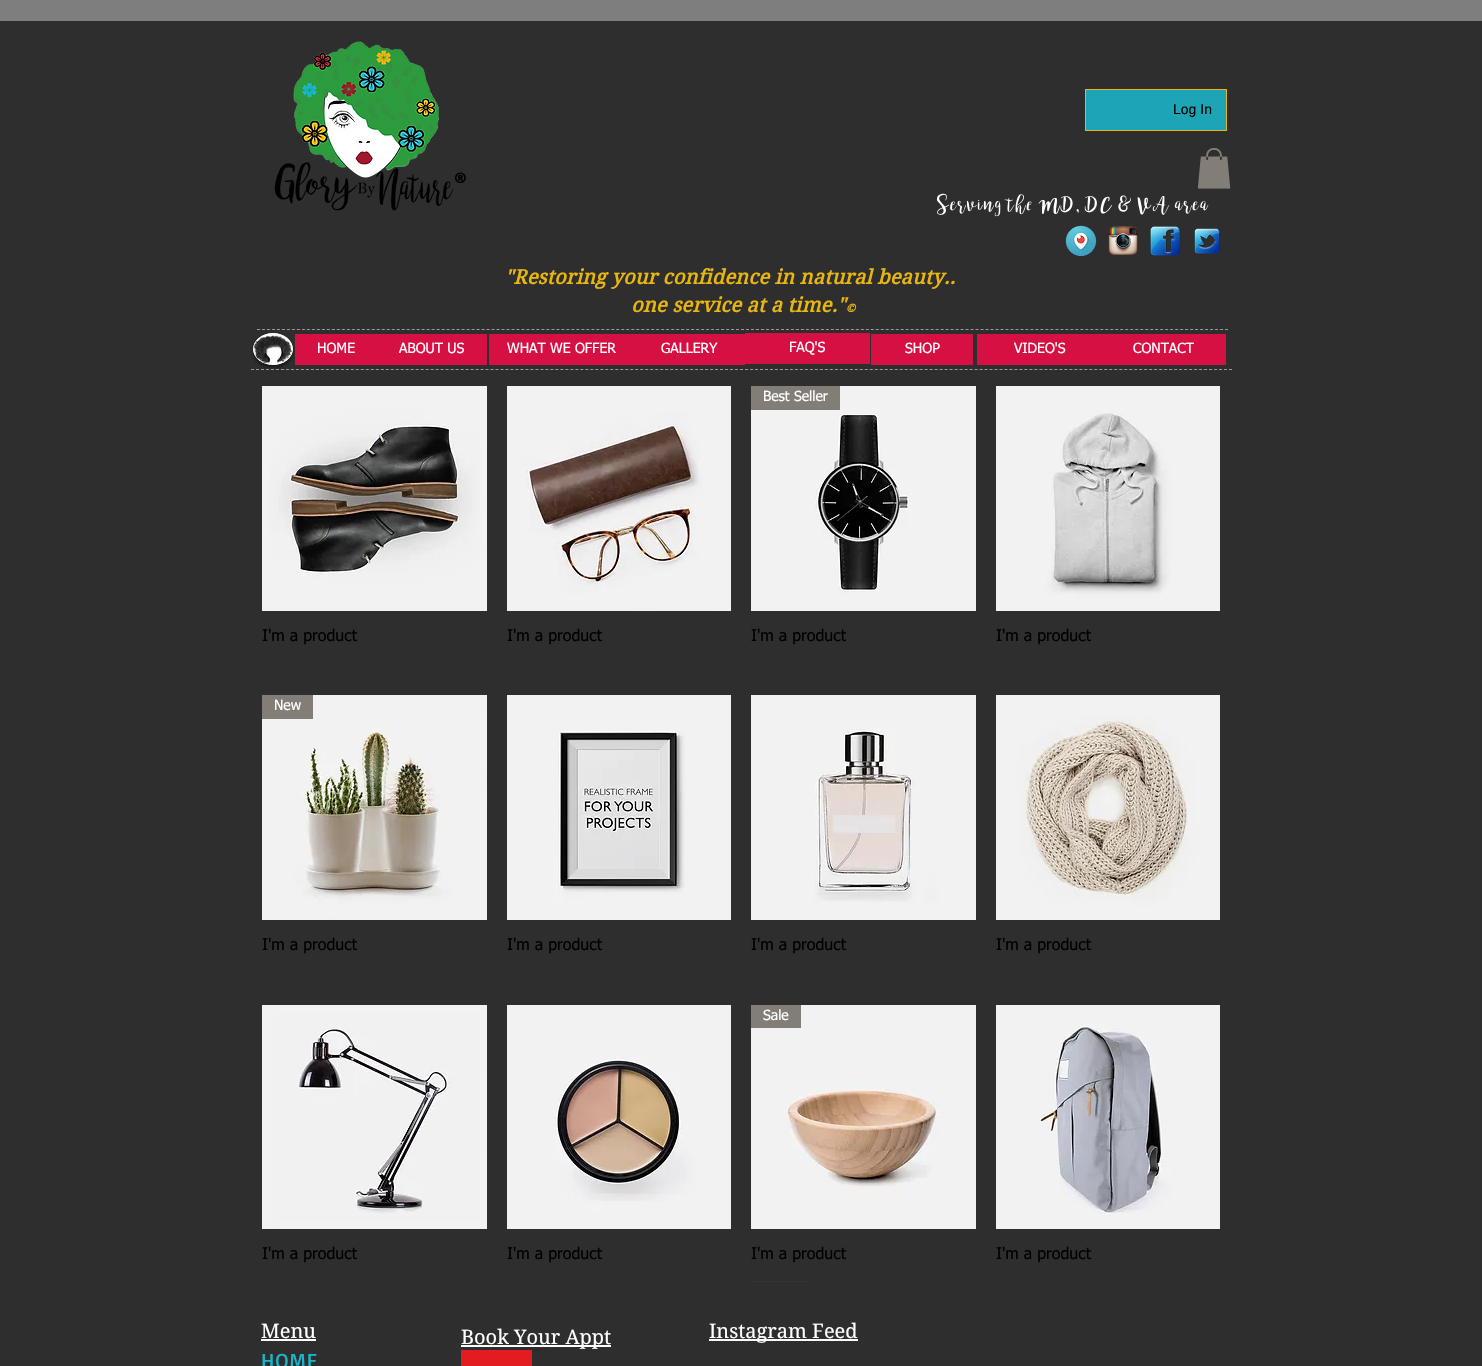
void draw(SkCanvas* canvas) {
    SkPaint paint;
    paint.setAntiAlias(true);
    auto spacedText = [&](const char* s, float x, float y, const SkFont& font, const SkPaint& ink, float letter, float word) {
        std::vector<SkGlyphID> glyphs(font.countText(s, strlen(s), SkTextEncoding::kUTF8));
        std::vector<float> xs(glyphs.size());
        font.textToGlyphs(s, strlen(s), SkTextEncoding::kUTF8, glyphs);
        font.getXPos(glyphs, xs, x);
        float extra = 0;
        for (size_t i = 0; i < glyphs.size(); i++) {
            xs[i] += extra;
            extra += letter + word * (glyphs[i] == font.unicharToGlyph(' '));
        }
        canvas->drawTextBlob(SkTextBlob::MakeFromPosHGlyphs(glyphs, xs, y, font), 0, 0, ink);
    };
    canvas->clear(0xFF2F2E2E);
    paint.setColor(0xFF7F7E7E);
    canvas->drawRect(SkRect::MakeXYWH(0, 0, 1482, 21), paint);
    paint.setColor(0xFF1DA5B6);
    canvas->drawRect(SkRect::MakeXYWH(1085.5f, 89.5f, 141, 41), paint);
    paint.setStyle(SkPaint::kStroke_Style);
    paint.setStrokeWidth(1);
    paint.setColor(0xFFE8B610);
    canvas->drawRect(SkRect::MakeXYWH(1085.5f, 89.5f, 141, 41), paint);
    SkFont font1(fontMgr->matchFamilyStyle("Liberation Sans", SkFontStyle::Normal()), 14);
    font1.setSubpixel(true);
    paint.setStyle(SkPaint::kFill_Style);
    paint.setColor(0xFF000000);
    canvas->drawString("Log In", 1173, 114, font1, paint);
    canvas->drawImageRect(SkImages::DeferredFromEncodedData(SkData::MakeFromFileName("img1.png")), SkRect::MakeXYWH(274, 41, 180, 170), SkSamplingOptions());
    SkFont font2(fontMgr->matchFamilyStyle("Basic", SkFontStyle::Bold()), 15);
    font2.setSubpixel(true);
    canvas->drawString("®", 454, 183, font2, paint);
    canvas->drawImageRect(SkImages::DeferredFromEncodedData(SkData::MakeFromFileName("img2.png")), SkRect::MakeXYWH(1197, 148, 34, 41), SkSamplingOptions());
    canvas->drawImageRect(SkImages::DeferredFromEncodedData(SkData::MakeFromFileName("img3.png")), SkRect::MakeXYWH(936, 193, 273, 24), SkSamplingOptions());
    canvas->drawImageRect(SkImages::DeferredFromEncodedData(SkData::MakeFromFileName("img4.png")), SkRect::MakeXYWH(1065, 225, 32, 32), SkSamplingOptions());
    canvas->drawImageRect(SkImages::DeferredFromEncodedData(SkData::MakeFromFileName("img5.png")), SkRect::MakeXYWH(1108, 226, 30, 29), SkSamplingOptions());
    canvas->drawImageRect(SkImages::DeferredFromEncodedData(SkData::MakeFromFileName("img6.png")), SkRect::MakeXYWH(1150, 226, 30, 30), SkSamplingOptions());
    canvas->drawImageRect(SkImages::DeferredFromEncodedData(SkData::MakeFromFileName("img7.png")), SkRect::MakeXYWH(1194, 228, 26, 26), SkSamplingOptions());
    SkFont font3(fontMgr->matchFamilyStyle("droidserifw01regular", SkFontStyle::BoldItalic()), 20);
    font3.setSubpixel(true);
    paint.setColor(0xFFE8B610);
    spacedText("\"Restoring your confidence in natural beauty..", 505, 284, font3, paint, 0.2f, 0);
    spacedText("one service at a time.\"", 631, 312, font3, paint, 0.2f, 0);
    SkFont font4(fontMgr->matchFamilyStyle("droidserifw01regular", SkFontStyle::BoldItalic()), 11);
    font4.setSubpixel(true);
    canvas->drawString("©", 846, 312, font4, paint);
    paint.setStyle(SkPaint::kStroke_Style);
    paint.setColor(0xFF999999);
    paint.setPathEffect(SkDashPathEffect::Make({{3, 1.99f}}, 0));
    canvas->drawPath(SkPathBuilder().moveTo(257, 329.5f).lineTo(1229, 329.5f).detach(), paint);
    paint.setPathEffect(nullptr);
    paint.setStyle(SkPaint::kFill_Style);
    paint.setColor(0x80000000);
    paint.setMaskFilter(SkMaskFilter::MakeBlur(kNormal_SkBlurStyle, 1.5f));
    canvas->drawRoundRect(SkRect::MakeXYWH(253, 335, 40, 32), 16, 16, paint);
    paint.setMaskFilter(nullptr);
    paint.setColor(0xFFE8D5BA);
    canvas->drawOval(SkRect::MakeXYWH(253, 333, 40, 32), paint);
    canvas->drawImageRect(SkImages::DeferredFromEncodedData(SkData::MakeFromFileName("img8.png")), SkRect::MakeXYWH(253, 333, 40, 32), SkSamplingOptions());
    paint.setColor(0xFFD61043);
    canvas->drawRect(SkRect::MakeXYWH(295, 334, 192, 31), paint);
    SkFont font5(fontMgr->matchFamilyStyle("tahoma", SkFontStyle::Normal()), 14);
    font5.setSubpixel(true);
    paint.setColor(0xFFFFFFFF);
    canvas->drawString("HOME", 317, 353, font5, paint);
    canvas->drawString("ABOUT US", 399, 353, font5, paint);
    paint.setColor(0xFFD61043);
    canvas->drawRect(SkRect::MakeXYWH(489, 334, 256, 31), paint);
    paint.setColor(0xFFFFFFFF);
    canvas->drawString("WHAT WE OFFER", 507, 353, font5, paint);
    canvas->drawString("GALLERY", 661, 353, font5, paint);
    paint.setColor(0xFFD61043);
    canvas->drawRect(SkRect::MakeXYWH(745, 333, 125, 31), paint);
    paint.setColor(0xFFFFFFFF);
    canvas->drawString("FAQ'S", 789, 352, font5, paint);
    paint.setColor(0xFFD61043);
    canvas->drawRect(SkRect::MakeXYWH(871, 334, 102, 31), paint);
    paint.setColor(0xFFFFFFFF);
    canvas->drawString("SHOP", 905, 353, font5, paint);
    paint.setColor(0xFFD61043);
    canvas->drawRect(SkRect::MakeXYWH(977, 334, 249, 31), paint);
    paint.setColor(0xFFFFFFFF);
    canvas->drawString("VIDEO'S", 1014, 353, font5, paint);
    canvas->drawString("CONTACT", 1133, 353, font5, paint);
    paint.setStyle(SkPaint::kStroke_Style);
    paint.setColor(0xFF999999);
    paint.setPathEffect(SkDashPathEffect::Make({{3, 1.99f}}, 0));
    canvas->drawPath(SkPathBuilder().moveTo(251, 369.5f).lineTo(1232, 369.5f).detach(), paint);
    paint.setPathEffect(nullptr);
    canvas->drawImageRect(SkImages::DeferredFromEncodedData(SkData::MakeFromFileName("img9.png")), SkRect::MakeXYWH(262, 386, 225, 225), SkSamplingOptions());
    SkFont font6(fontMgr->matchFamilyStyle("tahoma", SkFontStyle::Normal()), 16);
    font6.setSubpixel(true);
    paint.setStyle(SkPaint::kFill_Style);
    paint.setColor(0xFF000000);
    canvas->drawString("I'm a product", 262, 641, font6, paint);
    canvas->drawImageRect(SkImages::DeferredFromEncodedData(SkData::MakeFromFileName("img10.png")), SkRect::MakeXYWH(507, 386, 224, 225), SkSamplingOptions());
    canvas->drawString("I'm a product", 507, 641, font6, paint);
    canvas->drawImageRect(SkImages::DeferredFromEncodedData(SkData::MakeFromFileName("img11.png")), SkRect::MakeXYWH(751, 386, 225, 225), SkSamplingOptions());
    paint.setColor(0xFF827D77);
    canvas->drawRect(SkRect::MakeXYWH(751, 386, 89, 24), paint);
    paint.setColor(0xFFFFFFFF);
    canvas->drawString("Best Seller", 763, 401, font5, paint);
    paint.setColor(0xFF000000);
    canvas->drawString("I'm a product", 751, 641, font6, paint);
    canvas->drawImageRect(SkImages::DeferredFromEncodedData(SkData::MakeFromFileName("img12.png")), SkRect::MakeXYWH(996, 386, 224, 225), SkSamplingOptions());
    canvas->drawString("I'm a product", 996, 641, font6, paint);
    canvas->drawImageRect(SkImages::DeferredFromEncodedData(SkData::MakeFromFileName("img13.png")), SkRect::MakeXYWH(262, 695, 225, 225), SkSamplingOptions());
    paint.setColor(0xFF827D77);
    canvas->drawRect(SkRect::MakeXYWH(262, 695, 51, 24), paint);
    paint.setColor(0xFFFFFFFF);
    canvas->drawString("New", 274, 710, font5, paint);
    paint.setColor(0xFF000000);
    canvas->drawString("I'm a product", 262, 950, font6, paint);
    canvas->drawImageRect(SkImages::DeferredFromEncodedData(SkData::MakeFromFileName("img14.png")), SkRect::MakeXYWH(507, 695, 224, 225), SkSamplingOptions());
    canvas->drawString("I'm a product", 507, 950, font6, paint);
    canvas->drawImageRect(SkImages::DeferredFromEncodedData(SkData::MakeFromFileName("img15.png")), SkRect::MakeXYWH(751, 695, 225, 225), SkSamplingOptions());
    canvas->drawString("I'm a product", 751, 950, font6, paint);
    canvas->drawImageRect(SkImages::DeferredFromEncodedData(SkData::MakeFromFileName("img16.png")), SkRect::MakeXYWH(996, 695, 224, 225), SkSamplingOptions());
    canvas->drawString("I'm a product", 996, 950, font6, paint);
    canvas->drawImageRect(SkImages::DeferredFromEncodedData(SkData::MakeFromFileName("img17.png")), SkRect::MakeXYWH(262, 1005, 225, 224), SkSamplingOptions());
    canvas->drawString("I'm a product", 262, 1259, font6, paint);
    canvas->drawImageRect(SkImages::DeferredFromEncodedData(SkData::MakeFromFileName("img18.png")), SkRect::MakeXYWH(507, 1005, 224, 224), SkSamplingOptions());
    canvas->drawString("I'm a product", 507, 1259, font6, paint);
    canvas->drawImageRect(SkImages::DeferredFromEncodedData(SkData::MakeFromFileName("img19.png")), SkRect::MakeXYWH(751, 1005, 225, 224), SkSamplingOptions());
    paint.setColor(0xFF827D77);
    canvas->drawRect(SkRect::MakeXYWH(751, 1005, 50, 23), paint);
    paint.setColor(0xFFFFFFFF);
    canvas->drawString("Sale", 763, 1020, font5, paint);
    paint.setColor(0xFF000000);
    canvas->drawString("I'm a product", 751, 1259, font6, paint);
    paint.setColor(0xFF333333);
    canvas->drawRect(SkRect::MakeXYWH(751, 1281, 57, 1), paint);
    canvas->drawImageRect(SkImages::DeferredFromEncodedData(SkData::MakeFromFileName("img20.png")), SkRect::MakeXYWH(996, 1005, 224, 224), SkSamplingOptions());
    paint.setColor(0xFF000000);
    canvas->drawString("I'm a product", 996, 1259, font6, paint);
    SkFont font7(fontMgr->matchFamilyStyle("droidserifw01regular", SkFontStyle::Normal()), 20);
    font7.setSubpixel(true);
    paint.setColor(0xFFFFFFFF);
    canvas->drawString("Menu", 261, 1338, font7, paint);
    canvas->drawRect(SkRect::MakeXYWH(261, 1339, 55, 2), paint);
    canvas->drawRect(SkRect::MakeXYWH(461, 1345, 150, 2), paint);
    canvas->drawString("Book Your Appt", 461, 1344, font7, paint);
    paint.setColor(0xFFE21C21);
    canvas->drawRect(SkRect::MakeXYWH(461, 1350, 71, 16), paint);
    paint.setColor(0xFFFFFFFF);
    canvas->drawRect(SkRect::MakeXYWH(709, 1339, 149, 2), paint);
    canvas->drawString("Instagram Feed", 709, 1338, font7, paint);
    SkFont font8(fontMgr->matchFamilyStyle("Basic", SkFontStyle::Normal()), 21);
    font8.setSubpixel(true);
    paint.setColor(0xFF1AB5C9);
    spacedText("HOME", 261, 1368, font8, paint, 1, 0);
}
